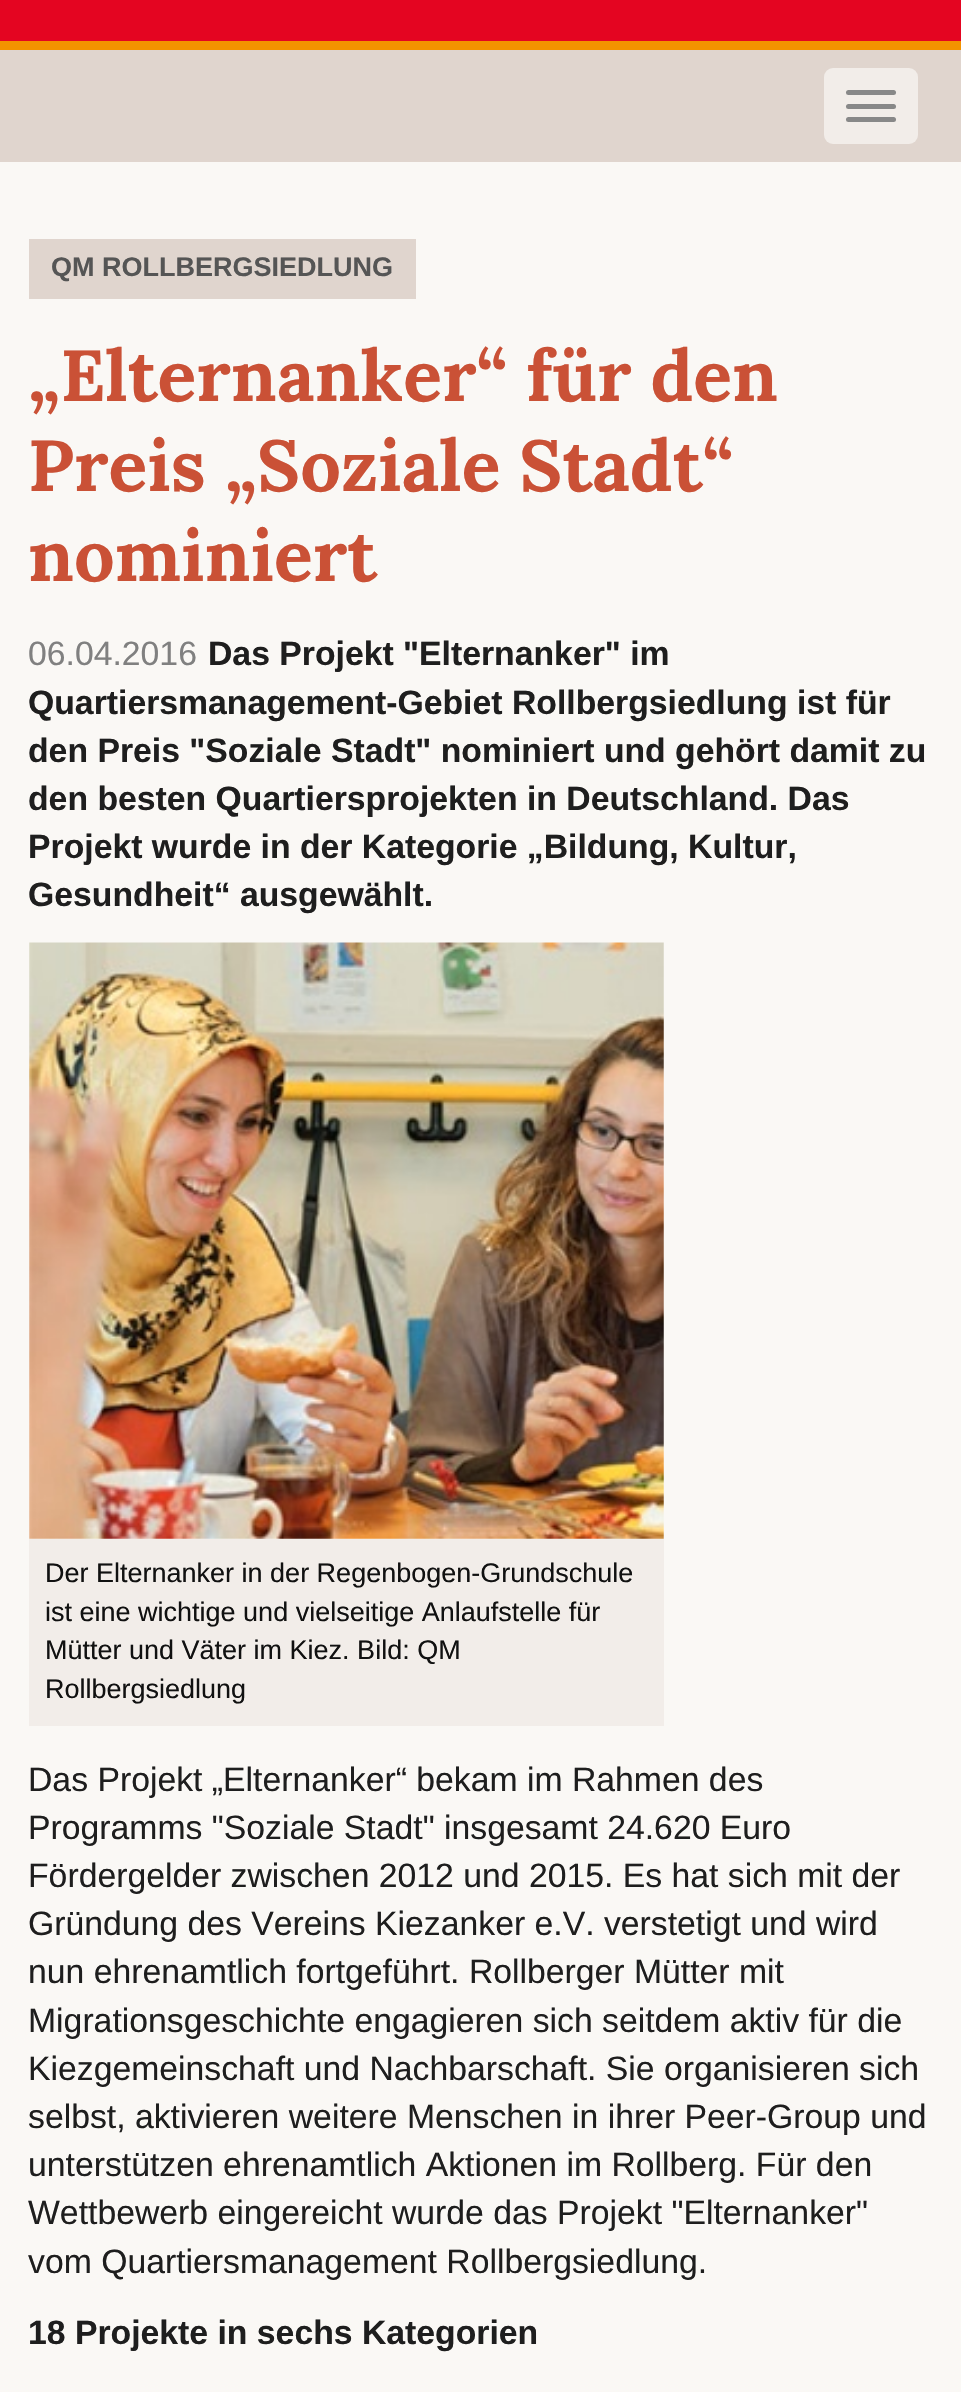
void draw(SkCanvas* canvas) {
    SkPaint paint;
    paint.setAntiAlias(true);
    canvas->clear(0xFFFAF8F5);
    paint.setColor(0xFFE40521);
    canvas->drawRect(SkRect::MakeXYWH(0, 0, 961, 41), paint);
    paint.setColor(0xFFE0D5CE);
    canvas->drawRect(SkRect::MakeXYWH(0, 50, 961, 112), paint);
    paint.setColor(0xFFF39300);
    canvas->drawRect(SkRect::MakeXYWH(0, 41, 961, 9), paint);
    paint.setColor(0xFFF2EDE9);
    canvas->drawRoundRect(SkRect::MakeXYWH(824, 68, 94, 76), 9, 9, paint);
    paint.setColor(0xFF888888);
    canvas->drawRoundRect(SkRect::MakeXYWH(846, 90, 50, 5), 2.5f, 2.5f, paint);
    canvas->drawRoundRect(SkRect::MakeXYWH(846, 104, 50, 5), 2.5f, 2.5f, paint);
    canvas->drawRoundRect(SkRect::MakeXYWH(846, 117, 50, 5), 2.5f, 2.5f, paint);
    paint.setColor(0xFFE0D5CE);
    canvas->drawRect(SkRect::MakeXYWH(29, 239, 387, 60), paint);
    SkFont font1(fontMgr->matchFamilyStyle("Liberation Sans", SkFontStyle::Bold()), 27);
    font1.setSubpixel(true);
    paint.setColor(0xFF555555);
    canvas->drawString("QM ROLLBERGSIEDLUNG", 51, 276, font1, paint);
    SkFont font2(fontMgr->matchFamilyStyle("Lora", SkFontStyle::Bold()), 72);
    font2.setSubpixel(true);
    paint.setColor(0xFFCA5136);
    canvas->drawString("„Elternanker“ für den", 28, 401, font2, paint);
    canvas->drawString("Preis „Soziale Stadt“", 28, 491, font2, paint);
    canvas->drawString("nominiert", 28, 581, font2, paint);
    SkFont font3(fontMgr->matchFamilyStyle("Liberation Sans", SkFontStyle::Bold()), 33.75f);
    font3.setSubpixel(true);
    paint.setColor(0xFF1E1E1E);
    canvas->drawString("Das Projekt \"Elternanker\" im", 208, 665, font3, paint);
    canvas->drawString("Quartiersmanagement-Gebiet Rollbergsiedlung ist für", 28, 714, font3, paint);
    canvas->drawString("den Preis \"Soziale Stadt\" nominiert und gehört damit zu", 28, 762, font3, paint);
    canvas->drawString("den besten Quartiersprojekten in Deutschland. Das", 28, 810, font3, paint);
    canvas->drawString("Projekt wurde in der Kategorie „Bildung, Kultur,", 28, 858, font3, paint);
    canvas->drawString("Gesundheit“ ausgewählt.", 28, 906, font3, paint);
    SkFont font4(fontMgr->matchFamilyStyle("Liberation Sans", SkFontStyle::Normal()), 33.75f);
    font4.setSubpixel(true);
    paint.setColor(0xFF808080);
    canvas->drawString("06.04.2016", 28, 665, font4, paint);
    canvas->drawImageRect(SkImages::DeferredFromEncodedData(SkData::MakeFromFileName("img1.png")), SkRect::MakeXYWH(29, 942, 635, 597), SkSamplingOptions());
    paint.setColor(0xFFF2EDE9);
    canvas->drawRect(SkRect::MakeXYWH(29, 1539, 635, 187), paint);
    SkFont font5(fontMgr->matchFamilyStyle("Liberation Sans", SkFontStyle::Normal()), 27);
    font5.setSubpixel(true);
    paint.setColor(0xFF111111);
    canvas->drawString("Der Elternanker in der Regenbogen-Grundschule", 45, 1582, font5, paint);
    canvas->drawString("ist eine wichtige und vielseitige Anlaufstelle für", 45, 1621, font5, paint);
    canvas->drawString("Mütter und Väter im Kiez. Bild: QM", 45, 1659, font5, paint);
    canvas->drawString("Rollbergsiedlung", 45, 1698, font5, paint);
    paint.setColor(0xFF1E1E1E);
    canvas->drawString("Das Projekt „Elternanker“ bekam im Rahmen des", 28, 1791, font4, paint);
    canvas->drawString("Programms \"Soziale Stadt\" insgesamt 24.620 Euro", 28, 1839, font4, paint);
    canvas->drawString("Fördergelder zwischen 2012 und 2015. Es hat sich mit der", 28, 1887, font4, paint);
    canvas->drawString("Gründung des Vereins Kiezanker e.V. verstetigt und wird", 28, 1935, font4, paint);
    canvas->drawString("nun ehrenamtlich fortgeführt. Rollberger Mütter mit", 28, 1983, font4, paint);
    canvas->drawString("Migrationsgeschichte engagieren sich seitdem aktiv für die", 28, 2032, font4, paint);
    canvas->drawString("Kiezgemeinschaft und Nachbarschaft. Sie organisieren sich", 28, 2080, font4, paint);
    canvas->drawString("selbst, aktivieren weitere Menschen in ihrer Peer-Group und", 28, 2128, font4, paint);
    canvas->drawString("unterstützen ehrenamtlich Aktionen im Rollberg. Für den", 28, 2176, font4, paint);
    canvas->drawString("Wettbewerb eingereicht wurde das Projekt \"Elternanker\"", 28, 2224, font4, paint);
    canvas->drawString("vom Quartiersmanagement Rollbergsiedlung.", 28, 2273, font4, paint);
    canvas->drawString("18 Projekte in sechs Kategorien", 28, 2344, font3, paint);
}
